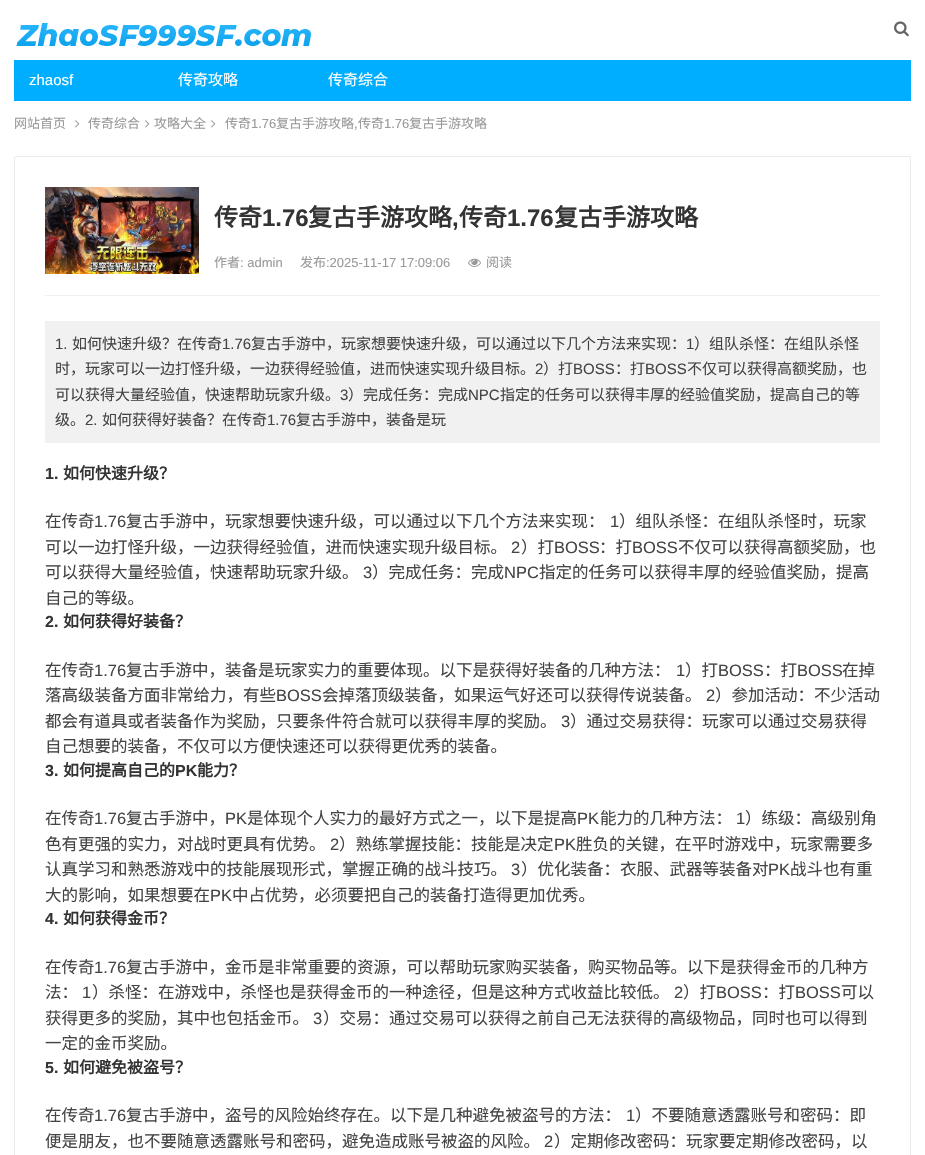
void draw(SkCanvas* canvas) {
    SkPaint paint;
    paint.setAntiAlias(true);
    canvas->clear(0xFFFFFFFF);
    canvas->drawImageRect(SkImages::DeferredFromEncodedData(SkData::MakeFromFileName("img1.png")), SkRect::MakeXYWH(16, 23, 295, 23), SkSamplingOptions());
    canvas->drawImageRect(SkImages::DeferredFromEncodedData(SkData::MakeFromFileName("img2.png")), SkRect::MakeXYWH(894, 21, 15, 16), SkSamplingOptions());
    paint.setColor(0xFF00AEFF);
    canvas->drawRect(SkRect::MakeXYWH(14, 60, 897, 41), paint);
    SkFont font1(fontMgr->matchFamilyStyle("Liberation Sans", SkFontStyle::Normal()), 15);
    font1.setSubpixel(true);
    paint.setColor(0xFFFFFFFF);
    canvas->drawString("zhaosf", 29, 85, font1, paint);
    SkFont font2(fontMgr->matchFamilyStyle("Noto Sans CJK SC", SkFontStyle::Normal()), 15);
    font2.setSubpixel(true);
    canvas->drawString("传奇攻略", 178, 85, font2, paint);
    canvas->drawString("传奇综合", 328, 85, font2, paint);
    SkFont font3(fontMgr->matchFamilyStyle("Noto Sans CJK SC", SkFontStyle::Normal()), 13);
    font3.setSubpixel(true);
    paint.setColor(0xFF999999);
    canvas->drawString("网站首页", 14, 128, font3, paint);
    canvas->drawImageRect(SkImages::DeferredFromEncodedData(SkData::MakeFromFileName("img3.png")), SkRect::MakeXYWH(75, 120, 5, 8), SkSamplingOptions());
    canvas->drawString("传奇综合", 88, 128, font3, paint);
    canvas->drawImageRect(SkImages::DeferredFromEncodedData(SkData::MakeFromFileName("img3.png")), SkRect::MakeXYWH(145, 120, 5, 8), SkSamplingOptions());
    canvas->drawString("攻略大全", 154, 128, font3, paint);
    canvas->drawImageRect(SkImages::DeferredFromEncodedData(SkData::MakeFromFileName("img3.png")), SkRect::MakeXYWH(211, 120, 5, 8), SkSamplingOptions());
    canvas->drawString("传奇", 225, 128, font3, paint);
    SkFont font4(fontMgr->matchFamilyStyle("Liberation Sans", SkFontStyle::Normal()), 13);
    font4.setSubpixel(true);
    canvas->drawString("1.76", 251, 128, font4, paint);
    canvas->drawString("复古手游攻略", 276, 128, font3, paint);
    canvas->drawString(",", 354, 128, font4, paint);
    canvas->drawString("传奇", 358, 128, font3, paint);
    canvas->drawString("1.76", 384, 128, font4, paint);
    canvas->drawString("复古手游攻略", 409, 128, font3, paint);
    paint.setStyle(SkPaint::kStroke_Style);
    paint.setStrokeWidth(1);
    paint.setColor(0xFFEAEAEA);
    canvas->drawRoundRect(SkRect::MakeXYWH(14.5f, 156.5f, 896, 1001), 1.5f, 1.5f, paint);
    paint.setStyle(SkPaint::kFill_Style);
    paint.setColor(0xFFF0F0F0);
    canvas->drawRect(SkRect::MakeXYWH(45, 295, 835, 1), paint);
    canvas->drawImageRect(SkImages::DeferredFromEncodedData(SkData::MakeFromFileName("img4.png")), SkRect::MakeXYWH(45, 187, 154, 87), SkSamplingOptions());
    SkFont font5(fontMgr->matchFamilyStyle("Noto Sans CJK SC", SkFontStyle::Bold()), 24);
    font5.setSubpixel(true);
    paint.setColor(0xFF333333);
    canvas->drawString("传奇", 214, 226, font5, paint);
    SkFont font6(fontMgr->matchFamilyStyle("Liberation Sans", SkFontStyle::Bold()), 24);
    font6.setSubpixel(true);
    canvas->drawString("1.76", 262, 226, font6, paint);
    canvas->drawString("复古手游攻略", 308, 226, font5, paint);
    canvas->drawString(",", 452, 226, font6, paint);
    canvas->drawString("传奇", 459, 226, font5, paint);
    canvas->drawString("1.76", 507, 226, font6, paint);
    canvas->drawString("复古手游攻略", 554, 226, font5, paint);
    paint.setColor(0xFF999999);
    canvas->drawString("作者", 214, 267, font3, paint);
    canvas->drawString(": admin", 240, 267, font4, paint);
    canvas->drawString("发布", 300, 267, font3, paint);
    canvas->drawString(":2025-11-17 17:09:06", 326, 267, font4, paint);
    canvas->drawImageRect(SkImages::DeferredFromEncodedData(SkData::MakeFromFileName("img5.png")), SkRect::MakeXYWH(468, 258, 13, 9), SkSamplingOptions());
    canvas->drawString("阅读", 486, 267, font3, paint);
    paint.setColor(0xFFF1F1F1);
    canvas->drawRect(SkRect::MakeXYWH(45, 321, 835, 122), paint);
    paint.setColor(0xFF444444);
    canvas->drawString("1.", 55, 349, font1, paint);
    canvas->drawString("如何快速升级？在传奇", 72, 349, font2, paint);
    canvas->drawString("1.76", 222, 349, font1, paint);
    canvas->drawString("复古手游中，玩家想要快速升级，可以通过以下几个方法来实现：", 251, 349, font2, paint);
    canvas->drawString("1", 686, 349, font1, paint);
    canvas->drawString("）组队杀怪：在组队杀怪", 694, 349, font2, paint);
    canvas->drawString("时，玩家可以一边打怪升级，一边获得经验值，进而快速实现升级目标。", 55, 374, font2, paint);
    canvas->drawString("2", 535, 374, font1, paint);
    canvas->drawString("）打", 543, 374, font2, paint);
    canvas->drawString("BOSS", 573, 374, font1, paint);
    canvas->drawString("：打", 615, 374, font2, paint);
    canvas->drawString("BOSS", 645, 374, font1, paint);
    canvas->drawString("不仅可以获得高额奖励，也", 687, 374, font2, paint);
    canvas->drawString("可以获得大量经验值，快速帮助玩家升级。", 55, 400, font2, paint);
    canvas->drawString("3", 340, 400, font1, paint);
    canvas->drawString("）完成任务：完成", 348, 400, font2, paint);
    canvas->drawString("NPC", 468, 400, font1, paint);
    canvas->drawString("指定的任务可以获得丰厚的经验值奖励，提高自己的等", 500, 400, font2, paint);
    canvas->drawString("级。", 55, 425, font2, paint);
    canvas->drawString("2.", 85, 425, font1, paint);
    canvas->drawString("如何获得好装备？在传奇", 102, 425, font2, paint);
    canvas->drawString("1.76", 267, 425, font1, paint);
    canvas->drawString("复古手游中，装备是玩", 296, 425, font2, paint);
    SkFont font7(fontMgr->matchFamilyStyle("Liberation Sans", SkFontStyle::Bold()), 16);
    font7.setSubpixel(true);
    paint.setColor(0xFF333333);
    canvas->drawString("1.", 45, 479, font7, paint);
    SkFont font8(fontMgr->matchFamilyStyle("Noto Sans CJK SC", SkFontStyle::Bold()), 16);
    font8.setSubpixel(true);
    canvas->drawString("如何快速升级？", 63, 479, font8, paint);
    SkFont font9(fontMgr->matchFamilyStyle("Noto Sans CJK SC", SkFontStyle::Normal()), 16.5f);
    font9.setSubpixel(true);
    paint.setColor(0xFF444444);
    canvas->drawString("在传奇", 45, 527, font9, paint);
    SkFont font10(fontMgr->matchFamilyStyle("Liberation Sans", SkFontStyle::Normal()), 16.5f);
    font10.setSubpixel(true);
    canvas->drawString("1.76", 94, 527, font10, paint);
    canvas->drawString("复古手游中，玩家想要快速升级，可以通过以下几个方法来实现：", 126, 527, font9, paint);
    canvas->drawString("1", 610, 527, font10, paint);
    canvas->drawString("）组队杀怪：在组队杀怪时，玩家", 619, 527, font9, paint);
    canvas->drawString("可以一边打怪升级，一边获得经验值，进而快速实现升级目标。", 45, 553, font9, paint);
    canvas->drawString("2", 511, 553, font10, paint);
    canvas->drawString("）打", 521, 553, font9, paint);
    canvas->drawString("BOSS", 554, 553, font10, paint);
    canvas->drawString("：打", 599, 553, font9, paint);
    canvas->drawString("BOSS", 632, 553, font10, paint);
    canvas->drawString("不仅可以获得高额奖励，也", 678, 553, font9, paint);
    canvas->drawString("可以获得大量经验值，快速帮助玩家升级。", 45, 578, font9, paint);
    canvas->drawString("3", 363, 578, font10, paint);
    canvas->drawString("）完成任务：完成", 372, 578, font9, paint);
    canvas->drawString("NPC", 504, 578, font10, paint);
    canvas->drawString("指定的任务可以获得丰厚的经验值奖励，提高", 539, 578, font9, paint);
    canvas->drawString("自己的等级。", 45, 604, font9, paint);
    paint.setColor(0xFF333333);
    canvas->drawString("2.", 45, 627, font7, paint);
    canvas->drawString("如何获得好装备？", 63, 627, font8, paint);
    paint.setColor(0xFF444444);
    canvas->drawString("在传奇", 45, 676, font9, paint);
    canvas->drawString("1.76", 94, 676, font10, paint);
    canvas->drawString("复古手游中，装备是玩家实力的重要体现。以下是获得好装备的几种方法：", 126, 676, font9, paint);
    canvas->drawString("1", 676, 676, font10, paint);
    canvas->drawString("）打", 685, 676, font9, paint);
    canvas->drawString("BOSS", 718, 676, font10, paint);
    canvas->drawString("：打", 764, 676, font9, paint);
    canvas->drawString("BOSS", 797, 676, font10, paint);
    canvas->drawString("在掉", 842, 676, font9, paint);
    canvas->drawString("落高级装备方面非常给力，有些", 45, 701, font9, paint);
    canvas->drawString("BOSS", 276, 701, font10, paint);
    canvas->drawString("会掉落顶级装备，如果运气好还可以获得传说装备。", 322, 701, font9, paint);
    canvas->drawString("2", 706, 701, font10, paint);
    canvas->drawString("）参加活动：不少活动", 715, 701, font9, paint);
    canvas->drawString("都会有道具或者装备作为奖励，只要条件符合就可以获得丰厚的奖励。", 45, 727, font9, paint);
    canvas->drawString("3", 561, 727, font10, paint);
    canvas->drawString("）通过交易获得：玩家可以通过交易获得", 570, 727, font9, paint);
    canvas->drawString("自己想要的装备，不仅可以方便快速还可以获得更优秀的装备。", 45, 752, font9, paint);
    paint.setColor(0xFF333333);
    canvas->drawString("3.", 45, 776, font7, paint);
    canvas->drawString("如何提高自己的", 63, 776, font8, paint);
    canvas->drawString("PK", 175, 776, font7, paint);
    canvas->drawString("能力？", 197, 776, font8, paint);
    paint.setColor(0xFF444444);
    canvas->drawString("在传奇", 45, 824, font9, paint);
    canvas->drawString("1.76", 94, 824, font10, paint);
    canvas->drawString("复古手游中，", 126, 824, font9, paint);
    canvas->drawString("PK", 225, 824, font10, paint);
    canvas->drawString("是体现个人实力的最好方式之一，以下是提高", 247, 824, font9, paint);
    canvas->drawString("PK", 577, 824, font10, paint);
    canvas->drawString("能力的几种方法：", 600, 824, font9, paint);
    canvas->drawString("1", 736, 824, font10, paint);
    canvas->drawString("）练级：高级别角", 745, 824, font9, paint);
    canvas->drawString("色有更强的实力，对战时更具有优势。", 45, 850, font9, paint);
    canvas->drawString("2", 330, 850, font10, paint);
    canvas->drawString("）熟练掌握技能：技能是决定", 339, 850, font9, paint);
    canvas->drawString("PK", 554, 850, font10, paint);
    canvas->drawString("胜负的关键，在平时游戏中，玩家需要多", 576, 850, font9, paint);
    canvas->drawString("认真学习和熟悉游戏中的技能展现形式，掌握正确的战斗技巧。", 45, 875, font9, paint);
    canvas->drawString("3", 511, 875, font10, paint);
    canvas->drawString("）优化装备：衣服、武器等装备对", 521, 875, font9, paint);
    canvas->drawString("PK", 768, 875, font10, paint);
    canvas->drawString("战斗也有重", 790, 875, font9, paint);
    canvas->drawString("大的影响，如果想要在", 45, 901, font9, paint);
    canvas->drawString("PK", 210, 901, font10, paint);
    canvas->drawString("中占优势，必须要把自己的装备打造得更加优秀。", 232, 901, font9, paint);
    paint.setColor(0xFF333333);
    canvas->drawString("4.", 45, 924, font7, paint);
    canvas->drawString("如何获得金币？", 63, 924, font8, paint);
    paint.setColor(0xFF444444);
    canvas->drawString("在传奇", 45, 973, font9, paint);
    canvas->drawString("1.76", 94, 973, font10, paint);
    canvas->drawString("复古手游中，金币是非常重要的资源，可以帮助玩家购买装备，购买物品等。以下是获得金币的几种方", 126, 973, font9, paint);
    canvas->drawString("法：", 45, 998, font9, paint);
    canvas->drawString("1", 82, 998, font10, paint);
    canvas->drawString("）杀怪：在游戏中，杀怪也是获得金币的一种途径，但是这种方式收益比较低。", 92, 998, font9, paint);
    canvas->drawString("2", 674, 998, font10, paint);
    canvas->drawString("）打", 683, 998, font9, paint);
    canvas->drawString("BOSS", 716, 998, font10, paint);
    canvas->drawString("：打", 762, 998, font9, paint);
    canvas->drawString("BOSS", 795, 998, font10, paint);
    canvas->drawString("可以", 841, 998, font9, paint);
    canvas->drawString("获得更多的奖励，其中也包括金币。", 45, 1024, font9, paint);
    canvas->drawString("3", 313, 1024, font10, paint);
    canvas->drawString("）交易：通过交易可以获得之前自己无法获得的高级物品，同时也可以得到", 323, 1024, font9, paint);
    canvas->drawString("一定的金币奖励。", 45, 1049, font9, paint);
    paint.setColor(0xFF333333);
    canvas->drawString("5.", 45, 1073, font7, paint);
    canvas->drawString("如何避免被盗号？", 63, 1073, font8, paint);
    paint.setColor(0xFF444444);
    canvas->drawString("在传奇", 45, 1121, font9, paint);
    canvas->drawString("1.76", 94, 1121, font10, paint);
    canvas->drawString("复古手游中，盗号的风险始终存在。以下是几种避免被盗号的方法：", 126, 1121, font9, paint);
    canvas->drawString("1", 626, 1121, font10, paint);
    canvas->drawString("）不要随意透露账号和密码：即", 635, 1121, font9, paint);
    canvas->drawString("便是朋友，也不要随意透露账号和密码，避免造成账号被盗的风险。", 45, 1147, font9, paint);
    canvas->drawString("2", 544, 1147, font10, paint);
    canvas->drawString("）定期修改密码：玩家要定期修改密码，以", 554, 1147, font9, paint);
}
